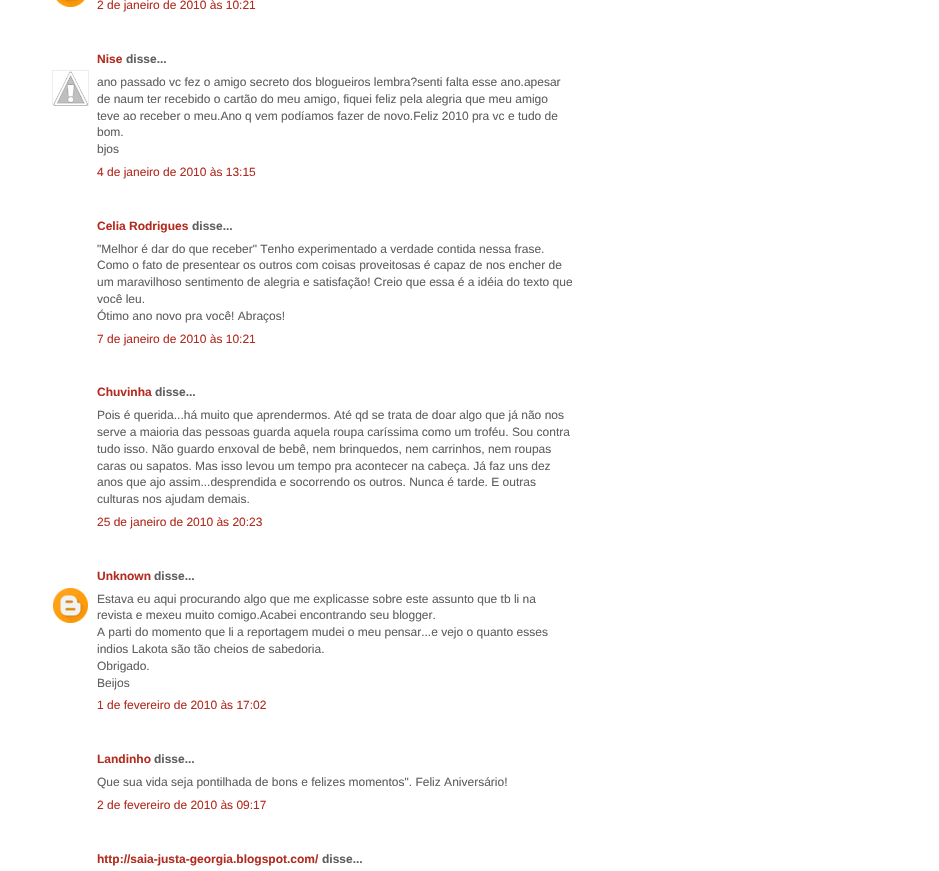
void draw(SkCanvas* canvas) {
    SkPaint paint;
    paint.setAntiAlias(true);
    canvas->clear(0xFFFFFFFF);
    canvas->drawImageRect(SkImages::DeferredFromEncodedData(SkData::MakeFromFileName("img1.png")), SkRect::MakeXYWH(56, 0, 29, 7), SkSamplingOptions());
    SkFont font1(fontMgr->matchFamilyStyle("Liberation Sans", SkFontStyle::Normal()), 12);
    font1.setSubpixel(true);
    paint.setColor(0xFFB32C20);
    canvas->drawString("2 de janeiro de 2010 às 10:21", 97, 9, font1, paint);
    SkFont font2(fontMgr->matchFamilyStyle("Liberation Sans", SkFontStyle::Bold()), 12);
    font2.setSubpixel(true);
    canvas->drawString("Nise", 97, 63, font2, paint);
    paint.setColor(0xFF606060);
    canvas->drawString("disse...", 126, 63, font2, paint);
    canvas->save();
    canvas->clipRect(SkRect::MakeXYWH(52, 70, 37, 36));
    paint.setStyle(SkPaint::kStroke_Style);
    paint.setStrokeWidth(1);
    paint.setColor(0xFFEDEDED);
    canvas->drawRect(SkRect::MakeXYWH(52.5f, 70.5f, 36, 36), paint);
    canvas->restore();
    canvas->drawImageRect(SkImages::DeferredFromEncodedData(SkData::MakeFromFileName("img2.png")), SkRect::MakeXYWH(53, 71, 35, 35), SkSamplingOptions());
    paint.setStyle(SkPaint::kFill_Style);
    paint.setColor(0xFF606060);
    canvas->drawString("ano passado vc fez o amigo secreto dos blogueiros lembra?senti falta esse ano.apesar", 97, 86, font1, paint);
    canvas->drawString("de naum ter recebido o cartão do meu amigo, fiquei feliz pela alegria que meu amigo", 97, 103, font1, paint);
    canvas->drawString("teve ao receber o meu.Ano q vem podíamos fazer de novo.Feliz 2010 pra vc e tudo de", 97, 120, font1, paint);
    canvas->drawString("bom.", 97, 136, font1, paint);
    canvas->drawString("bjos", 97, 153, font1, paint);
    paint.setColor(0xFFB32C20);
    canvas->drawString("4 de janeiro de 2010 às 13:15", 97, 176, font1, paint);
    canvas->drawString("Celia Rodrigues", 97, 230, font2, paint);
    paint.setColor(0xFF606060);
    canvas->drawString("disse...", 192, 230, font2, paint);
    canvas->drawString("\"Melhor é dar do que receber\" Tenho experimentado a verdade contida nessa frase.", 97, 253, font1, paint);
    canvas->drawString("Como o fato de presentear os outros com coisas proveitosas é capaz de nos encher de", 97, 269, font1, paint);
    canvas->drawString("um maravilhoso sentimento de alegria e satisfação! Creio que essa é a idéia do texto que", 97, 286, font1, paint);
    canvas->drawString("você leu.", 97, 303, font1, paint);
    canvas->drawString("Ótimo ano novo pra você! Abraços!", 97, 320, font1, paint);
    paint.setColor(0xFFB32C20);
    canvas->drawString("7 de janeiro de 2010 às 10:21", 97, 343, font1, paint);
    canvas->drawString("Chuvinha", 97, 396, font2, paint);
    paint.setColor(0xFF606060);
    canvas->drawString("disse...", 155, 396, font2, paint);
    canvas->drawString("Pois é querida...há muito que aprendermos. Até qd se trata de doar algo que já não nos", 97, 419, font1, paint);
    canvas->drawString("serve a maioria das pessoas guarda aquela roupa caríssima como um troféu. Sou contra", 97, 436, font1, paint);
    canvas->drawString("tudo isso. Não guardo enxoval de bebê, nem brinquedos, nem carrinhos, nem roupas", 97, 453, font1, paint);
    canvas->drawString("caras ou sapatos. Mas isso levou um tempo pra acontecer na cabeça. Já faz uns dez", 97, 470, font1, paint);
    canvas->drawString("anos que ajo assim...desprendida e socorrendo os outros. Nunca é tarde. E outras", 97, 486, font1, paint);
    canvas->drawString("culturas nos ajudam demais.", 97, 503, font1, paint);
    paint.setColor(0xFFB32C20);
    canvas->drawString("25 de janeiro de 2010 às 20:23", 97, 526, font1, paint);
    canvas->drawString("Unknown", 97, 580, font2, paint);
    paint.setColor(0xFF606060);
    canvas->drawString("disse...", 154, 580, font2, paint);
    canvas->drawImageRect(SkImages::DeferredFromEncodedData(SkData::MakeFromFileName("img3.png")), SkRect::MakeXYWH(53, 588, 35, 35), SkSamplingOptions());
    canvas->drawString("Estava eu aqui procurando algo que me explicasse sobre este assunto que tb li na", 97, 603, font1, paint);
    canvas->drawString("revista e mexeu muito comigo.Acabei encontrando seu blogger.", 97, 619, font1, paint);
    canvas->drawString("A parti do momento que li a reportagem mudei o meu pensar...e vejo o quanto esses", 97, 636, font1, paint);
    canvas->drawString("indios Lakota são tão cheios de sabedoria.", 97, 653, font1, paint);
    canvas->drawString("Obrigado.", 97, 670, font1, paint);
    canvas->drawString("Beijos", 97, 687, font1, paint);
    paint.setColor(0xFFB32C20);
    canvas->drawString("1 de fevereiro de 2010 às 17:02", 97, 709, font1, paint);
    canvas->drawString("Landinho", 97, 763, font2, paint);
    paint.setColor(0xFF606060);
    canvas->drawString("disse...", 154, 763, font2, paint);
    canvas->drawString("Que sua vida seja pontilhada de bons e felizes momentos\". Feliz Aniversário!", 97, 786, font1, paint);
    paint.setColor(0xFFB32C20);
    canvas->drawString("2 de fevereiro de 2010 às 09:17", 97, 809, font1, paint);
    canvas->drawString("http://saia-justa-georgia.blogspot.com/", 97, 863, font2, paint);
    paint.setColor(0xFF606060);
    canvas->drawString("disse...", 322, 863, font2, paint);
}
